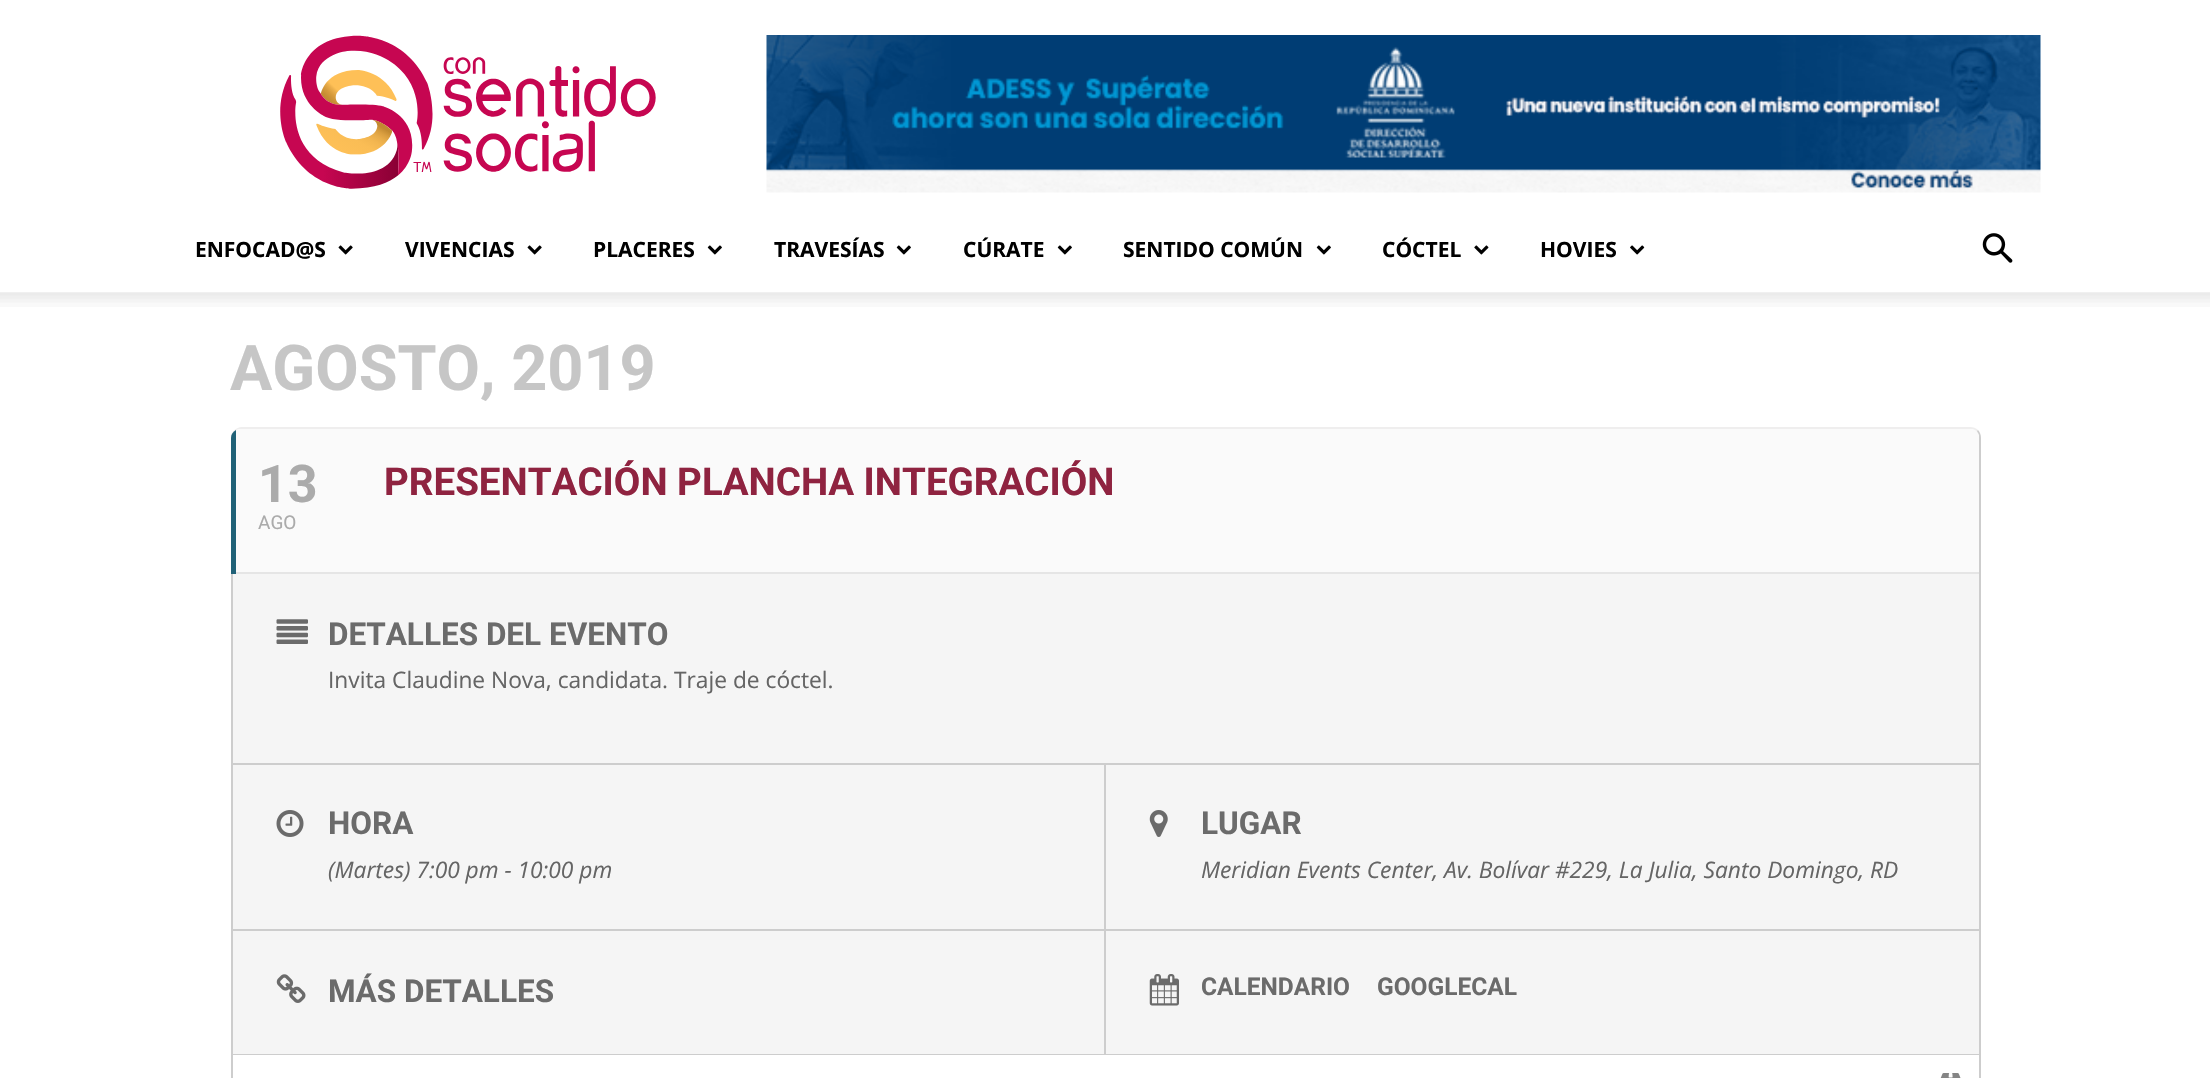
void draw(SkCanvas* canvas) {
    SkPaint paint;
    paint.setAntiAlias(true);
    canvas->clear(0xFFFFFFFF);
    canvas->drawImageRect(SkImages::DeferredFromEncodedData(SkData::MakeFromFileName("img1.png")), SkRect::MakeXYWH(280, 35, 376, 154), SkSamplingOptions());
    canvas->drawImageRect(SkImages::DeferredFromEncodedData(SkData::MakeFromFileName("img2.png")), SkRect::MakeXYWH(766, 35, 1275, 158), SkSamplingOptions());
    SkFont font1(fontMgr->matchFamilyStyle("Open Sans", SkFontStyle::Bold()), 21);
    font1.setSubpixel(true);
    paint.setColor(0xFF000000);
    canvas->drawString("ENFOCAD@S", 195, 257, font1, paint);
    canvas->drawImageRect(SkImages::DeferredFromEncodedData(SkData::MakeFromFileName("img3.png")), SkRect::MakeXYWH(338, 245, 15, 10), SkSamplingOptions());
    canvas->drawString("VIVENCIAS", 405, 257, font1, paint);
    canvas->drawImageRect(SkImages::DeferredFromEncodedData(SkData::MakeFromFileName("img3.png")), SkRect::MakeXYWH(527, 245, 15, 10), SkSamplingOptions());
    canvas->drawString("PLACERES", 593, 257, font1, paint);
    canvas->drawImageRect(SkImages::DeferredFromEncodedData(SkData::MakeFromFileName("img4.png")), SkRect::MakeXYWH(707, 245, 15, 10), SkSamplingOptions());
    canvas->drawString("TRAVESÍAS", 774, 257, font1, paint);
    canvas->drawImageRect(SkImages::DeferredFromEncodedData(SkData::MakeFromFileName("img4.png")), SkRect::MakeXYWH(896, 245, 15, 10), SkSamplingOptions());
    canvas->drawString("CÚRATE", 963, 257, font1, paint);
    canvas->drawImageRect(SkImages::DeferredFromEncodedData(SkData::MakeFromFileName("img4.png")), SkRect::MakeXYWH(1057, 245, 15, 10), SkSamplingOptions());
    canvas->drawString("SENTIDO COMÚN", 1123, 257, font1, paint);
    canvas->drawImageRect(SkImages::DeferredFromEncodedData(SkData::MakeFromFileName("img4.png")), SkRect::MakeXYWH(1316, 245, 15, 10), SkSamplingOptions());
    canvas->drawString("CÓCTEL", 1382, 257, font1, paint);
    canvas->drawImageRect(SkImages::DeferredFromEncodedData(SkData::MakeFromFileName("img5.png")), SkRect::MakeXYWH(1474, 245, 15, 10), SkSamplingOptions());
    canvas->drawString("HOVIES", 1540, 257, font1, paint);
    canvas->drawImageRect(SkImages::DeferredFromEncodedData(SkData::MakeFromFileName("img6.png")), SkRect::MakeXYWH(1630, 245, 15, 10), SkSamplingOptions());
    canvas->drawImageRect(SkImages::DeferredFromEncodedData(SkData::MakeFromFileName("img7.png")), SkRect::MakeXYWH(1982, 233, 31, 30), SkSamplingOptions());
    canvas->drawImageRect(SkImages::DeferredFromEncodedData(SkData::MakeFromFileName("img8.png")), SkRect::MakeXYWH(0, 292, 2210, 15), SkSamplingOptions());
    SkFont font2(fontMgr->matchFamilyStyle("Roboto", SkFontStyle::Bold()), 63);
    font2.setSubpixel(true);
    paint.setColor(0xFFC6C6C6);
    canvas->drawString("AGOSTO, 2019", 230, 390, font2, paint);
    paint.setColor(0xFFEFEEEE);
    canvas->drawPath(SkPathBuilder().moveTo(242, 427).lineTo(1970, 427).cubicTo(1973, 427, 1976, 428, 1978, 430).lineTo(1976, 432).cubicTo(1975, 430, 1972, 429, 1970, 429).lineTo(242, 429).cubicTo(236, 429, 231, 433, 231, 438).cubicTo(231, 432, 236, 427, 242, 427).close().detach(), paint);
    paint.setColor(0xFFCDCDCD);
    canvas->drawPath(SkPathBuilder().moveTo(1978, 430).lineTo(1976, 432).cubicTo(1978, 433, 1979, 436, 1979, 438).lineTo(1979, 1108).cubicTo(1979, 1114, 1975, 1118, 1970, 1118).cubicTo(1976, 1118, 1981, 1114, 1981, 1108).lineTo(1981, 438).cubicTo(1981, 435, 1980, 432, 1978, 430).close().detach(), paint);
    paint.setColor(0xFFFAFAFA);
    canvas->drawPath(SkPathBuilder().moveTo(231, 438).lineTo(231, 574).lineTo(1979, 574).lineTo(1979, 435).cubicTo(1978, 432, 1976, 430, 1973, 429).lineTo(239, 429).cubicTo(234, 430, 231, 433, 231, 438).close().detach(), paint);
    paint.setColor(0xFF206177);
    canvas->drawPath(SkPathBuilder().moveTo(231, 438).lineTo(231, 574).lineTo(236, 574).lineTo(236, 430).cubicTo(233, 432, 231, 434, 231, 438).close().detach(), paint);
    SkFont font3(fontMgr->matchFamilyStyle("Roboto", SkFontStyle::Bold()), 52);
    font3.setSubpixel(true);
    paint.setColor(0xFFABABAB);
    canvas->drawString("13", 258, 502, font3, paint);
    SkFont font4(fontMgr->matchFamilyStyle("Roboto", SkFontStyle::Normal()), 19);
    font4.setSubpixel(true);
    canvas->drawString("AGO", 258, 529, font4, paint);
    SkFont font5(fontMgr->matchFamilyStyle("Roboto", SkFontStyle::Bold()), 38.5f);
    font5.setSubpixel(true);
    paint.setColor(0xFF8F2340);
    canvas->drawString("PRESENTACIÓN PLANCHA INTEGRACIÓN", 384, 495, font5, paint);
    paint.setColor(0xFFE5E5E5);
    canvas->drawRect(SkRect::MakeXYWH(236, 572, 1743, 2), paint);
    paint.setColor(0xFFF5F5F5);
    canvas->drawPath(SkPathBuilder().moveTo(231, 574).lineTo(231, 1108).cubicTo(231, 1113, 234, 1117, 239, 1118).lineTo(1972, 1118).cubicTo(1976, 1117, 1978, 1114, 1979, 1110).lineTo(1979, 574).close().detach(), paint);
    paint.setColor(0xFFCDCDCD);
    canvas->drawPath(SkPathBuilder().moveTo(231, 574).lineTo(231, 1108).cubicTo(231, 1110, 232, 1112, 233, 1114).lineTo(233, 574).close().detach(), paint);
    canvas->drawRect(SkRect::MakeXYWH(233, 763, 1746, 2), paint);
    canvas->drawImageRect(SkImages::DeferredFromEncodedData(SkData::MakeFromFileName("img9.png")), SkRect::MakeXYWH(276, 619, 32, 25), SkSamplingOptions());
    SkFont font6(fontMgr->matchFamilyStyle("Roboto", SkFontStyle::Bold()), 31.5f);
    font6.setSubpixel(true);
    paint.setColor(0xFF6B6B6B);
    canvas->drawString("DETALLES DEL EVENTO", 328, 645, font6, paint);
    SkFont font7(fontMgr->matchFamilyStyle("Open Sans", SkFontStyle::Normal()), 22.75f);
    font7.setSubpixel(true);
    paint.setColor(0xFF656565);
    canvas->drawString("Invita Claudine Nova, candidata. Traje de cóctel.", 328, 688, font7, paint);
    paint.setColor(0xFFCDCDCD);
    canvas->drawRect(SkRect::MakeXYWH(233, 929, 1746, 2), paint);
    canvas->drawRect(SkRect::MakeXYWH(1104, 765, 2, 164), paint);
    canvas->drawImageRect(SkImages::DeferredFromEncodedData(SkData::MakeFromFileName("img10.png")), SkRect::MakeXYWH(276, 810, 28, 27), SkSamplingOptions());
    paint.setColor(0xFF6B6B6B);
    canvas->drawString("HORA", 328, 834, font6, paint);
    SkFont font8(fontMgr->matchFamilyStyle("Open Sans", SkFontStyle::Italic()), 22.75f);
    font8.setSubpixel(true);
    paint.setColor(0xFF656565);
    canvas->drawString("(Martes) 7:00 pm - 10:00 pm", 328, 878, font8, paint);
    canvas->drawImageRect(SkImages::DeferredFromEncodedData(SkData::MakeFromFileName("img11.png")), SkRect::MakeXYWH(1149, 810, 19, 27), SkSamplingOptions());
    paint.setColor(0xFF6B6B6B);
    canvas->drawString("LUGAR", 1201, 834, font6, paint);
    paint.setColor(0xFF656565);
    canvas->drawString("Meridian Events Center, Av. Bolívar #229, La Julia, Santo Domingo, RD", 1201, 878, font8, paint);
    paint.setColor(0xFFCDCDCD);
    canvas->drawRect(SkRect::MakeXYWH(233, 1054, 1746, 1), paint);
    canvas->drawRect(SkRect::MakeXYWH(1104, 931, 2, 123), paint);
    canvas->drawImageRect(SkImages::DeferredFromEncodedData(SkData::MakeFromFileName("img12.png")), SkRect::MakeXYWH(276, 974, 30, 29), SkSamplingOptions());
    paint.setColor(0xFF6B6B6B);
    canvas->drawString("MÁS DETALLES", 328, 1002, font6, paint);
    canvas->drawImageRect(SkImages::DeferredFromEncodedData(SkData::MakeFromFileName("img13.png")), SkRect::MakeXYWH(1149, 974, 30, 32), SkSamplingOptions());
    SkFont font9(fontMgr->matchFamilyStyle("Roboto", SkFontStyle::Bold()), 24.5f);
    font9.setSubpixel(true);
    canvas->drawString("CALENDARIO", 1201, 995, font9, paint);
    canvas->drawString("GOOGLECAL", 1377, 995, font9, paint);
    paint.setColor(0xFFFFFFFF);
    canvas->drawPath(SkPathBuilder().moveTo(233, 1055).lineTo(1979, 1055).lineTo(1979, 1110).cubicTo(1978, 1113, 1977, 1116, 1975, 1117).lineTo(237, 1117).lineTo(233, 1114).close().detach(), paint);
    canvas->drawImageRect(SkImages::DeferredFromEncodedData(SkData::MakeFromFileName("img14.png")), SkRect::MakeXYWH(1940, 1073, 21, 5), SkSamplingOptions());
}
